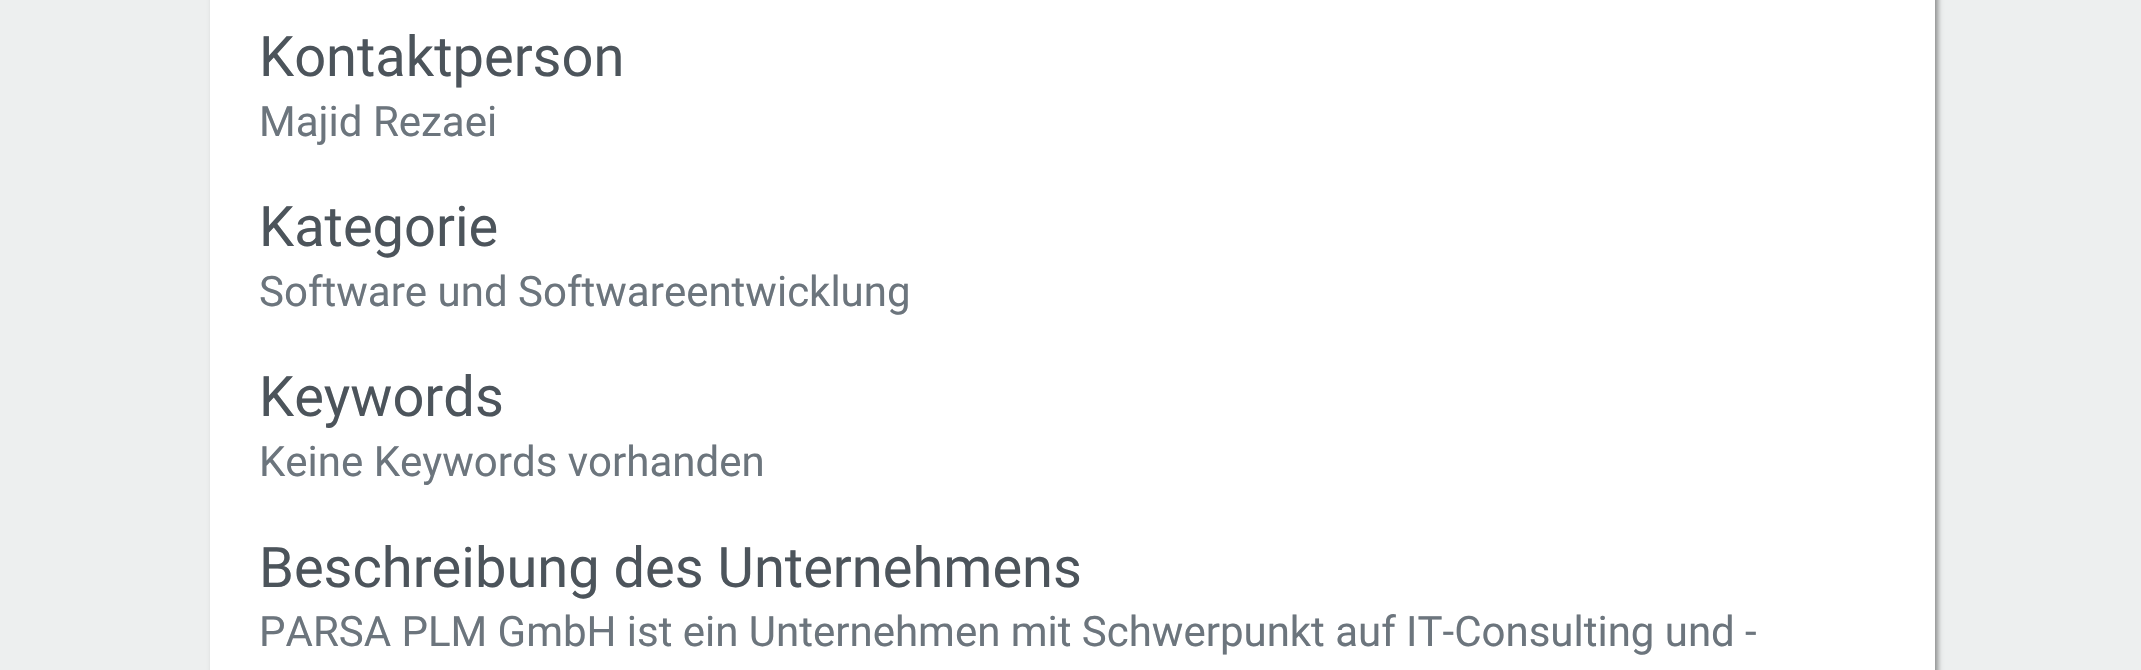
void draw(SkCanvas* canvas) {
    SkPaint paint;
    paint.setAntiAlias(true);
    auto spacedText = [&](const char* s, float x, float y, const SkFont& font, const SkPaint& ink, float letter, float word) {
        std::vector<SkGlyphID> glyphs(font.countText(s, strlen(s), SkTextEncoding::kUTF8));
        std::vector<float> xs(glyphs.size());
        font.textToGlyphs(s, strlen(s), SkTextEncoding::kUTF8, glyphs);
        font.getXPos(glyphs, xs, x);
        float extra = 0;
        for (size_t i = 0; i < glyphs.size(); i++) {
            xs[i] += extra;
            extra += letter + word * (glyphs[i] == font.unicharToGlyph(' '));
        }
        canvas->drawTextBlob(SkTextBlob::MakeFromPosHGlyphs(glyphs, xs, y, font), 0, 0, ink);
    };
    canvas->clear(0xFFEDEFEF);
    paint.setColor(0x66000000);
    paint.setMaskFilter(SkMaskFilter::MakeBlur(kNormal_SkBlurStyle, 2.5f));
    canvas->drawRect(SkRect::MakeXYWH(213, -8, 1725, 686), paint);
    paint.setMaskFilter(nullptr);
    paint.setColor(0xFFFFFFFF);
    canvas->drawRect(SkRect::MakeXYWH(210, 0, 1725, 670), paint);
    SkFont font1(fontMgr->matchFamilyStyle("Roboto", SkFontStyle::Normal()), 56);
    font1.setSubpixel(true);
    paint.setColor(0xFF4C545B);
    canvas->drawString("Kontaktperson", 259, 76, font1, paint);
    SkFont font2(fontMgr->matchFamilyStyle("Roboto", SkFontStyle::Normal()), 42);
    font2.setSubpixel(true);
    paint.setColor(0xFF6C757D);
    canvas->drawString("Majid Rezaei", 259, 136, font2, paint);
    paint.setColor(0xFF4C545B);
    canvas->drawString("Kategorie", 259, 246, font1, paint);
    paint.setColor(0xFF6C757D);
    canvas->drawString("Software und Softwareentwicklung", 259, 306, font2, paint);
    paint.setColor(0xFF4C545B);
    canvas->drawString("Keywords", 259, 416, font1, paint);
    paint.setColor(0xFF6C757D);
    canvas->drawString("Keine Keywords vorhanden", 259, 476, font2, paint);
    paint.setColor(0xFF4C545B);
    canvas->drawString("Beschreibung des Unternehmens", 259, 587, font1, paint);
    paint.setColor(0xFF6C757D);
    spacedText("PARSA PLM GmbH ist ein Unternehmen mit Schwerpunkt auf IT-Consulting und -", 259, 646, font2, paint, 0, -0.1f);
}
